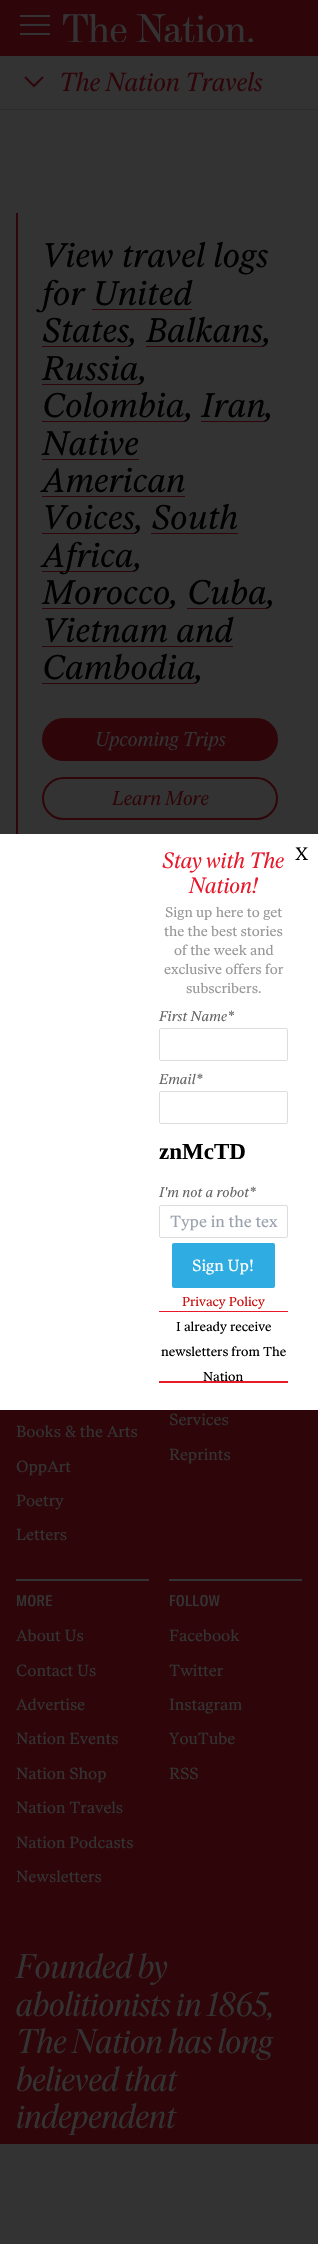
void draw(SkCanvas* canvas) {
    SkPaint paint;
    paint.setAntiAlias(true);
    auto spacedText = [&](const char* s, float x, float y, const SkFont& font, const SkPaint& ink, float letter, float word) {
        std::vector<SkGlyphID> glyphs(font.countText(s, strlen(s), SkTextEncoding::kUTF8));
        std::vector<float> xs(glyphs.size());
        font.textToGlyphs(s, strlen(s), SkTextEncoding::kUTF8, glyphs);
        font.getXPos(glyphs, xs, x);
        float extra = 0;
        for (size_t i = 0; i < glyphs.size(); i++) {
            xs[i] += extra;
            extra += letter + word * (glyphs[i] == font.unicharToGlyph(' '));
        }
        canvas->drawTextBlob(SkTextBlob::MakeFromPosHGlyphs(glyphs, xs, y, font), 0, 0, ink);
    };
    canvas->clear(0xFF333333);
    paint.setColor(0xFF2E0509);
    canvas->drawRect(SkRect::MakeXYWH(0, 0, 318, 56), paint);
    paint.setColor(0xFF333333);
    canvas->drawRect(SkRect::MakeXYWH(20, 15, 30, 2), paint);
    canvas->drawRect(SkRect::MakeXYWH(20, 24, 30, 2), paint);
    canvas->drawRect(SkRect::MakeXYWH(20, 33, 30, 2), paint);
    canvas->drawImageRect(SkImages::DeferredFromEncodedData(SkData::MakeFromFileName("img1.png")), SkRect::MakeXYWH(63, 14, 190, 28), SkSamplingOptions());
    paint.setColor(0xFF2D2C2B);
    canvas->drawRect(SkRect::MakeXYWH(0, 109, 318, 1), paint);
    paint.setStyle(SkPaint::kStroke_Style);
    paint.setStrokeWidth(2);
    paint.setColor(0xFF2E0509);
    canvas->drawPath(SkPathBuilder().moveTo(25, 77).lineTo(34, 86).lineTo(43, 77).detach(), paint);
    SkFont font1(fontMgr->matchFamilyStyle("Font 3", SkFontStyle::Italic()), 26);
    font1.setSubpixel(true);
    paint.setStyle(SkPaint::kFill_Style);
    canvas->drawString("The Nation Travels", 59, 91, font1, paint);
    canvas->drawRect(SkRect::MakeXYWH(16, 213, 2, 621), paint);
    SkFont font2(fontMgr->matchFamilyStyle("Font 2", SkFontStyle::Italic()), 34);
    font2.setSubpixel(true);
    paint.setColor(0xFF000000);
    canvas->drawString("View travel logs", 42, 267, font2, paint);
    canvas->drawString("for United", 42, 305, font2, paint);
    canvas->drawString(",", 129, 342, font2, paint);
    canvas->drawString("States", 42, 342, font2, paint);
    paint.setColor(0xFF2E0509);
    canvas->drawRect(SkRect::MakeXYWH(92, 309, 100, 1), paint);
    canvas->drawRect(SkRect::MakeXYWH(42, 346, 87, 1), paint);
    paint.setColor(0xFF000000);
    canvas->drawString(",", 263, 342, font2, paint);
    canvas->drawString("Balkans", 146, 342, font2, paint);
    paint.setColor(0xFF2E0509);
    canvas->drawRect(SkRect::MakeXYWH(146, 346, 117, 1), paint);
    paint.setColor(0xFF000000);
    canvas->drawString(",", 139, 380, font2, paint);
    canvas->drawString("Russia", 42, 380, font2, paint);
    paint.setColor(0xFF2E0509);
    canvas->drawRect(SkRect::MakeXYWH(42, 384, 97, 1), paint);
    paint.setColor(0xFF000000);
    canvas->drawString(",", 185, 417, font2, paint);
    canvas->drawString("Colombia", 42, 417, font2, paint);
    paint.setColor(0xFF2E0509);
    canvas->drawRect(SkRect::MakeXYWH(42, 421, 143, 1), paint);
    paint.setColor(0xFF000000);
    canvas->drawString(",", 265, 417, font2, paint);
    canvas->drawString("Iran", 201, 417, font2, paint);
    paint.setColor(0xFF2E0509);
    canvas->drawRect(SkRect::MakeXYWH(201, 421, 64, 1), paint);
    paint.setColor(0xFF000000);
    canvas->drawString("Native", 42, 455, font2, paint);
    paint.setColor(0xFF2E0509);
    canvas->drawRect(SkRect::MakeXYWH(42, 459, 97, 1), paint);
    paint.setColor(0xFF000000);
    canvas->drawString("American", 42, 492, font2, paint);
    paint.setColor(0xFF2E0509);
    canvas->drawRect(SkRect::MakeXYWH(42, 496, 143, 1), paint);
    paint.setColor(0xFF000000);
    canvas->drawString(", South", 135, 529, font2, paint);
    canvas->drawString("Voices", 42, 529, font2, paint);
    paint.setColor(0xFF2E0509);
    canvas->drawRect(SkRect::MakeXYWH(42, 533, 93, 1), paint);
    paint.setColor(0xFF000000);
    canvas->drawString(",", 134, 567, font2, paint);
    paint.setColor(0xFF2E0509);
    canvas->drawRect(SkRect::MakeXYWH(42, 571, 92, 1), paint);
    paint.setColor(0xFF000000);
    canvas->drawString("Africa", 42, 567, font2, paint);
    paint.setColor(0xFF2E0509);
    canvas->drawRect(SkRect::MakeXYWH(151, 533, 87, 1), paint);
    paint.setColor(0xFF000000);
    canvas->drawString(",", 170, 604, font2, paint);
    canvas->drawString("Morocco", 42, 604, font2, paint);
    paint.setColor(0xFF2E0509);
    canvas->drawRect(SkRect::MakeXYWH(42, 608, 128, 1), paint);
    paint.setColor(0xFF000000);
    canvas->drawString(",", 267, 604, font2, paint);
    canvas->drawString("Cuba", 187, 604, font2, paint);
    paint.setColor(0xFF2E0509);
    canvas->drawRect(SkRect::MakeXYWH(187, 608, 80, 1), paint);
    paint.setColor(0xFF000000);
    canvas->drawString("Vietnam and", 42, 642, font2, paint);
    paint.setColor(0xFF2E0509);
    canvas->drawRect(SkRect::MakeXYWH(42, 646, 191, 1), paint);
    paint.setColor(0xFF000000);
    canvas->drawString(",", 195, 679, font2, paint);
    canvas->drawString("Cambodia", 42, 679, font2, paint);
    paint.setColor(0xFF2E0509);
    canvas->drawRect(SkRect::MakeXYWH(42, 683, 153, 1), paint);
    canvas->drawRoundRect(SkRect::MakeXYWH(43, 719, 234, 41), 20.5f, 20.5f, paint);
    paint.setStyle(SkPaint::kStroke_Style);
    canvas->drawRoundRect(SkRect::MakeXYWH(43, 719, 234, 41), 20.5f, 20.5f, paint);
    SkFont font3(fontMgr->matchFamilyStyle("Font 3", SkFontStyle::Italic()), 20);
    font3.setSubpixel(true);
    paint.setStyle(SkPaint::kFill_Style);
    paint.setColor(0xFF333333);
    canvas->drawString("Upcoming Trips", 95, 746, font3, paint);
    paint.setStyle(SkPaint::kStroke_Style);
    paint.setColor(0xFF2E0509);
    canvas->drawRoundRect(SkRect::MakeXYWH(43, 778, 234, 41), 20.5f, 20.5f, paint);
    paint.setStyle(SkPaint::kFill_Style);
    canvas->drawString("Learn More", 112, 805, font3, paint);
    paint.setColor(0xFFFFFFFF);
    canvas->drawRect(SkRect::MakeXYWH(0, 834, 318, 576), paint);
    SkFont font4(fontMgr->matchFamilyStyle("Font 3", SkFontStyle::Italic()), 22);
    font4.setSubpixel(true);
    paint.setColor(0xFFE8192B);
    canvas->drawString("Stay with The", 162, 868, font4, paint);
    canvas->drawString("Nation!", 189, 893, font4, paint);
    SkFont font5(fontMgr->matchFamilyStyle("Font", SkFontStyle::Normal()), 14);
    font5.setSubpixel(true);
    paint.setColor(0xFF999999);
    canvas->drawString("Sign up here to get", 165, 917, font5, paint);
    canvas->drawString("the the best stories", 164, 936, font5, paint);
    canvas->drawString("of the week and", 174, 955, font5, paint);
    canvas->drawString("exclusive offers for", 164, 974, font5, paint);
    canvas->drawString("subscribers.", 186, 993, font5, paint);
    SkFont font6(fontMgr->matchFamilyStyle("Font", SkFontStyle::Normal()), 18);
    font6.setSubpixel(true);
    paint.setColor(0xFF000000);
    canvas->drawString("X", 295, 860, font6, paint);
    SkFont font7(fontMgr->matchFamilyStyle("Font 2", SkFontStyle::Italic()), 14);
    font7.setSubpixel(true);
    paint.setColor(0xFF666666);
    canvas->drawString("First Name*", 159, 1021, font7, paint);
    paint.setStyle(SkPaint::kStroke_Style);
    paint.setStrokeWidth(1);
    paint.setColor(0xFFDDDDDD);
    canvas->drawRoundRect(SkRect::MakeXYWH(159.5f, 1028.5f, 128, 32), 1.5f, 1.5f, paint);
    paint.setStyle(SkPaint::kFill_Style);
    paint.setColor(0xFF666666);
    canvas->drawString("Email*", 159, 1084, font7, paint);
    paint.setStyle(SkPaint::kStroke_Style);
    paint.setColor(0xFFDDDDDD);
    canvas->drawRoundRect(SkRect::MakeXYWH(159.5f, 1091.5f, 128, 32), 1.5f, 1.5f, paint);
    SkFont font8(fontMgr->matchFamilyStyle("Liberation Serif", SkFontStyle::Bold()), 23);
    font8.setSubpixel(true);
    paint.setStyle(SkPaint::kFill_Style);
    paint.setColor(0xFF000000);
    canvas->drawString("znMcTD", 159, 1159, font8, paint);
    paint.setColor(0xFF666666);
    canvas->drawString("I'm not a robot*", 159, 1197, font7, paint);
    paint.setStyle(SkPaint::kStroke_Style);
    paint.setColor(0xFFDDDDDD);
    canvas->drawRoundRect(SkRect::MakeXYWH(159.5f, 1205.5f, 128, 32), 1.5f, 1.5f, paint);
    SkFont font9(fontMgr->matchFamilyStyle("Font", SkFontStyle::Normal()), 16);
    font9.setSubpixel(true);
    paint.setStyle(SkPaint::kFill_Style);
    paint.setColor(0xFF9CA3AF);
    canvas->drawString("Type in the tex", 170, 1227, font9, paint);
    paint.setColor(0xFF2FACE2);
    canvas->drawRoundRect(SkRect::MakeXYWH(172, 1243, 103, 45), 2, 2, paint);
    paint.setColor(0xFFFFFFFF);
    canvas->drawString("Sign Up!", 192, 1271, font9, paint);
    paint.setColor(0xFFE8192B);
    canvas->drawRect(SkRect::MakeXYWH(159, 1311, 129, 1), paint);
    SkFont font10(fontMgr->matchFamilyStyle("Font", SkFontStyle::Normal()), 13);
    font10.setSubpixel(true);
    paint.setColor(0xFFCC0E0E);
    canvas->drawString("Privacy Policy", 182, 1306, font10, paint);
    paint.setColor(0xFFE8192B);
    canvas->drawRect(SkRect::MakeXYWH(159, 1381, 129, 2), paint);
    paint.setColor(0xFF000000);
    canvas->drawString("I already receive", 176, 1331, font10, paint);
    canvas->drawString("newsletters from The", 161, 1356, font10, paint);
    canvas->drawString("Nation", 203, 1381, font10, paint);
    paint.setColor(0xFF2E0509);
    canvas->drawRect(SkRect::MakeXYWH(0, 1410, 318, 734), paint);
    paint.setColor(0xFF333333);
    canvas->drawString("Books & the Arts", 16, 1437, font9, paint);
    canvas->drawString("OppArt", 16, 1472, font9, paint);
    canvas->drawString("Poetry", 16, 1506, font9, paint);
    canvas->drawString("Letters", 16, 1540, font9, paint);
    canvas->drawString("Services", 169, 1425, font9, paint);
    canvas->drawString("Reprints", 169, 1460, font9, paint);
    canvas->drawRect(SkRect::MakeXYWH(16, 1579, 133, 2), paint);
    SkFont font11(fontMgr->matchFamilyStyle("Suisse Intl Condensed", SkFontStyle(500, SkFontStyle::kNormal_Width, SkFontStyle::kUpright_Slant)), 15);
    font11.setSubpixel(true);
    spacedText("MORE", 16, 1606, font11, paint, 0.5f, 0);
    canvas->drawString("About Us", 16, 1641, font9, paint);
    canvas->drawString("Contact Us", 16, 1676, font9, paint);
    canvas->drawString("Advertise", 16, 1710, font9, paint);
    canvas->drawString("Nation Events", 16, 1744, font9, paint);
    canvas->drawString("Nation Shop", 16, 1779, font9, paint);
    canvas->drawString("Nation Travels", 16, 1813, font9, paint);
    canvas->drawString("Nation Podcasts", 16, 1848, font9, paint);
    canvas->drawString("Newsletters", 16, 1882, font9, paint);
    canvas->drawRect(SkRect::MakeXYWH(169, 1579, 133, 2), paint);
    spacedText("FOLLOW", 169, 1606, font11, paint, 0.5f, 0);
    canvas->drawString("Facebook", 169, 1641, font9, paint);
    canvas->drawString("Twitter", 169, 1676, font9, paint);
    canvas->drawString("Instagram", 169, 1710, font9, paint);
    canvas->drawString("YouTube", 169, 1744, font9, paint);
    canvas->drawString("RSS", 169, 1779, font9, paint);
    SkFont font12(fontMgr->matchFamilyStyle("Font", SkFontStyle::Italic()), 34);
    font12.setSubpixel(true);
    canvas->drawString("Founded by", 16, 1978, font12, paint);
    canvas->drawString("abolitionists in 1865,", 16, 2016, font12, paint);
    canvas->drawString("The Nation has long", 16, 2053, font12, paint);
    canvas->drawString("believed that", 16, 2091, font12, paint);
    canvas->drawString("independent", 16, 2128, font12, paint);
}
